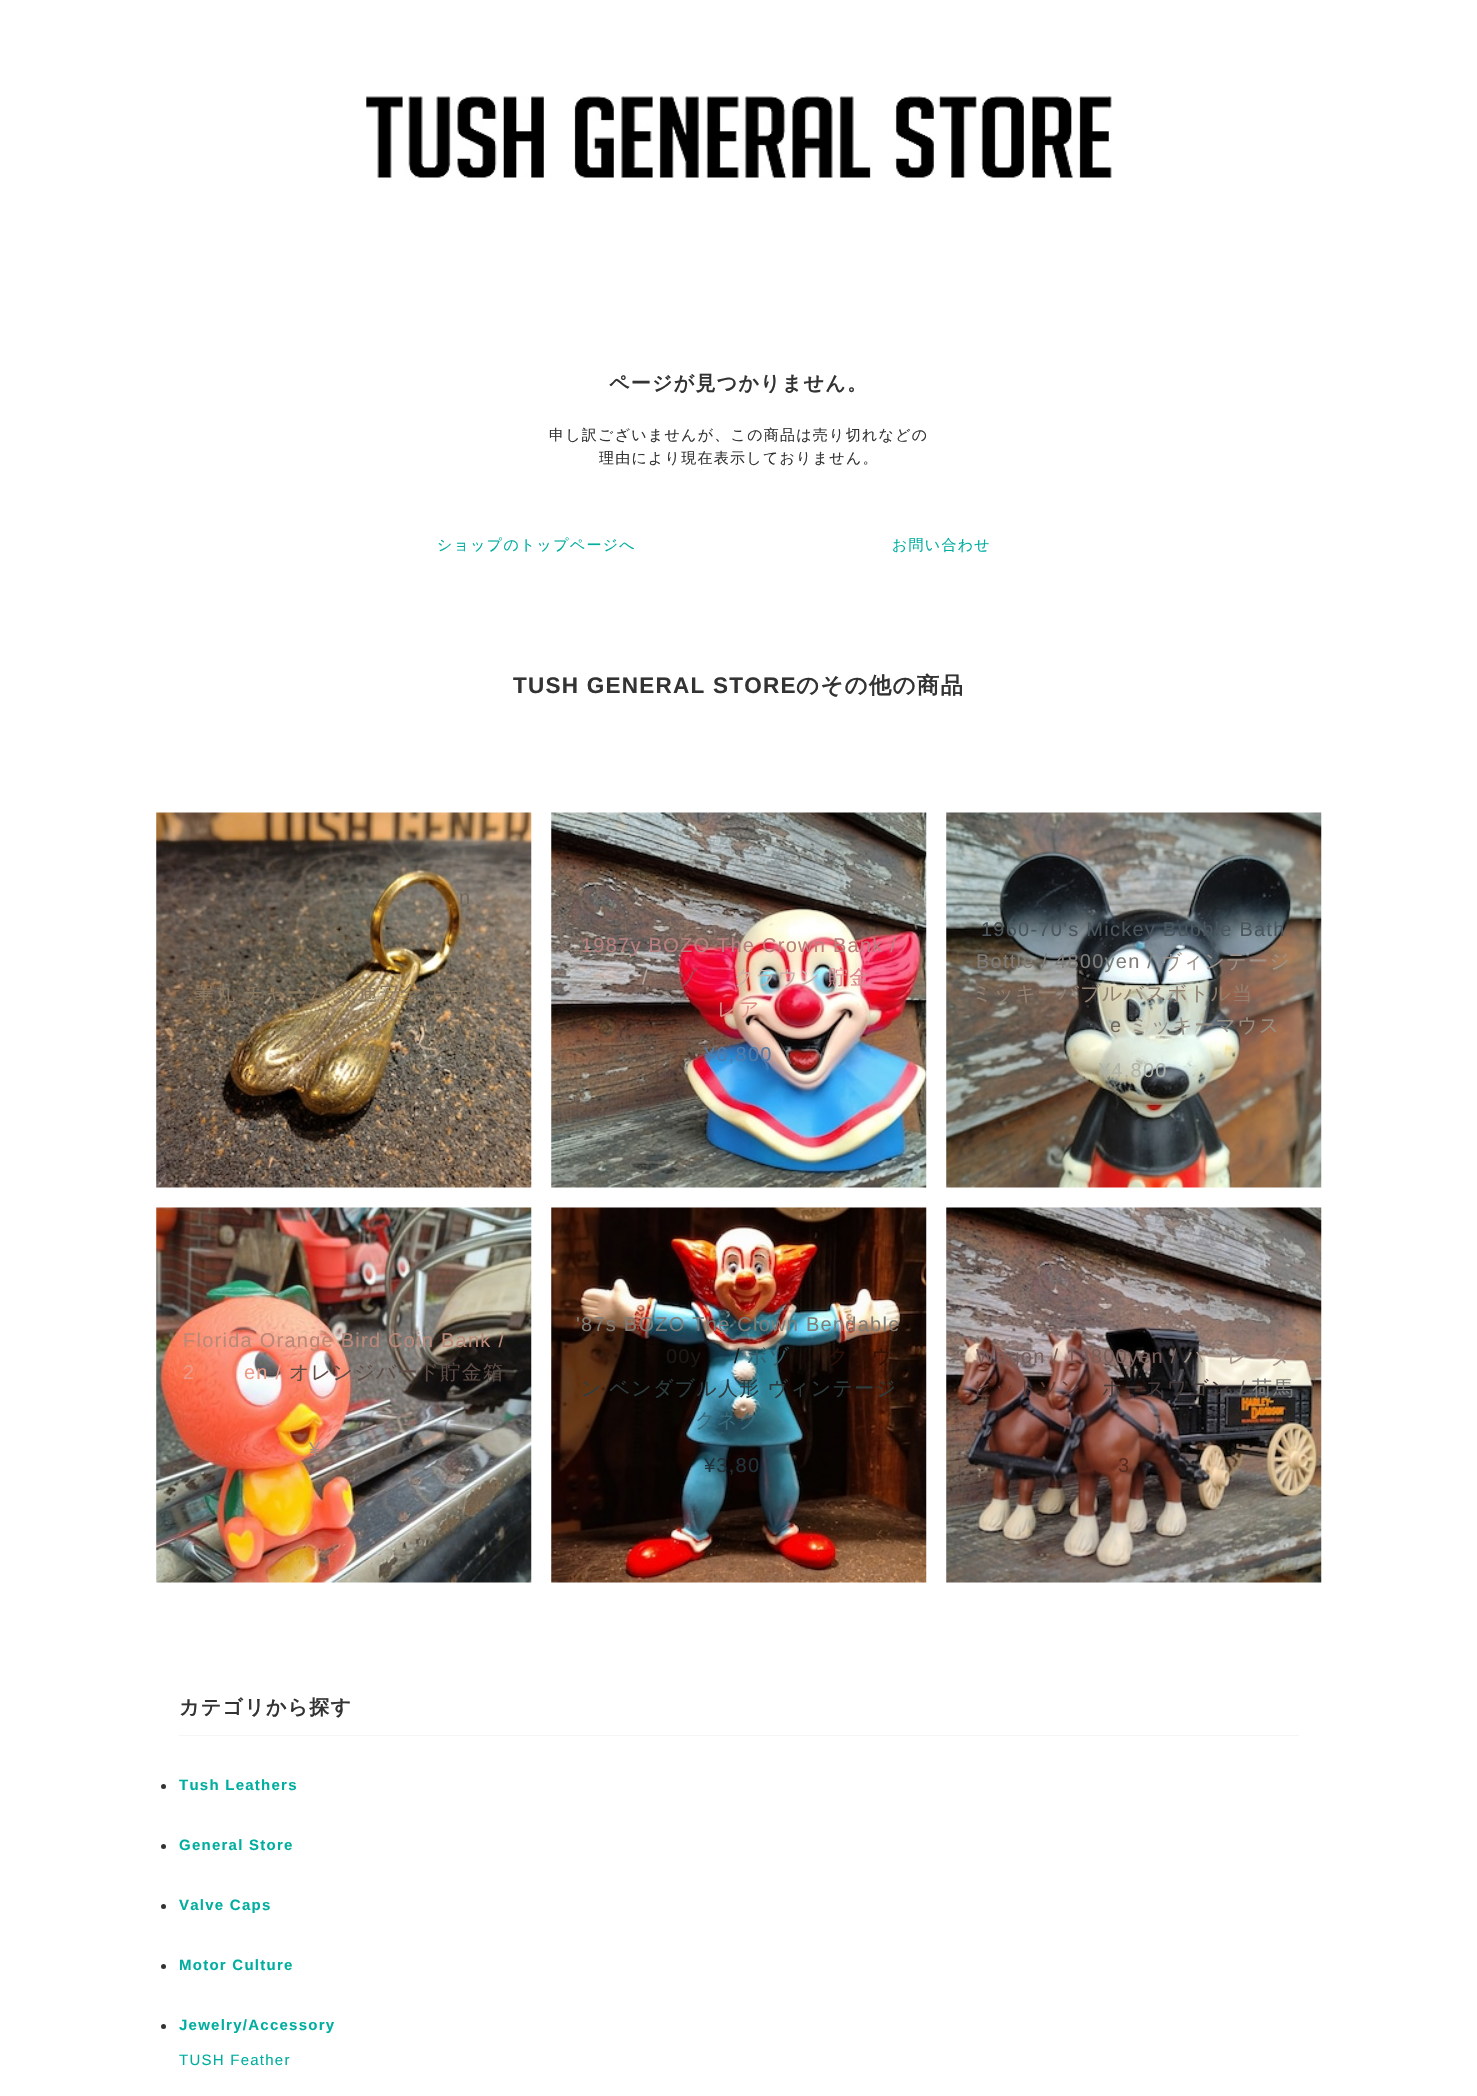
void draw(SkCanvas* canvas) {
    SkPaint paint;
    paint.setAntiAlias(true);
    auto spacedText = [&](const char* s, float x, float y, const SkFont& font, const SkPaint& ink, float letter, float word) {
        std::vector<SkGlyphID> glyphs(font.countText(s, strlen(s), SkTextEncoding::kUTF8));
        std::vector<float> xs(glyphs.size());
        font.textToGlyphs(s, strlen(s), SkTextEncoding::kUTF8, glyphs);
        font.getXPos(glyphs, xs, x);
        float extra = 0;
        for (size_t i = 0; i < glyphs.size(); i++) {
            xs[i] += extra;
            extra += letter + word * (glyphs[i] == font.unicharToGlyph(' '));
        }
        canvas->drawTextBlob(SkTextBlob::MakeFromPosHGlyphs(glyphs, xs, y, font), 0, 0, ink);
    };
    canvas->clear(0xFFFFFFFF);
    canvas->drawImageRect(SkImages::DeferredFromEncodedData(SkData::MakeFromFileName("img1.png")), SkRect::MakeXYWH(366, 96, 746, 83), SkSamplingOptions());
    SkFont font1(fontMgr->matchFamilyStyle("WenQuanYi Zen Hei", SkFontStyle::Bold()), 20);
    font1.setSubpixel(true);
    paint.setColor(0xFF333333);
    spacedText("ページが見つかりません。", 609, 390, font1, paint, 1.25f, 0);
    SkFont font2(fontMgr->matchFamilyStyle("WenQuanYi Zen Hei", SkFontStyle(500, SkFontStyle::kNormal_Width, SkFontStyle::kUpright_Slant)), 15);
    font2.setSubpixel(true);
    spacedText("申し訳ございませんが、この商品は売り切れなどの", 549, 440, font2, paint, 1.25f, 0);
    spacedText("理由により現在表示しておりません。", 599, 463, font2, paint, 1.25f, 0);
    paint.setColor(0xFF00AE9F);
    spacedText("ショップのトップページへ", 437, 550, font2, paint, 1.25f, 0);
    spacedText("お問い合わせ", 892, 550, font2, paint, 1.25f, 0);
    SkFont font3(fontMgr->matchFamilyStyle("Liberation Sans", SkFontStyle::Bold()), 22.5f);
    font3.setSubpixel(true);
    paint.setColor(0xFF333333);
    spacedText("TUSH GENERAL STORE", 513, 693, font3, paint, 1.25f, 0);
    SkFont font4(fontMgr->matchFamilyStyle("WenQuanYi Zen Hei", SkFontStyle::Bold()), 22.5f);
    font4.setSubpixel(true);
    spacedText("のその他の商品", 796, 693, font4, paint, 1.25f, 0);
    canvas->drawImageRect(SkImages::DeferredFromEncodedData(SkData::MakeFromFileName("img2.png")), SkRect::MakeXYWH(156, 812, 376, 376), SkSamplingOptions());
    SkFont font5(fontMgr->matchFamilyStyle("Liberation Sans", SkFontStyle::Normal()), 20);
    font5.setSubpixel(true);
    paint.setColor(0xFF736757);
    spacedText("n", 459, 904, font5, paint, 1.25f, 0);
    SkFont font6(fontMgr->matchFamilyStyle("WenQuanYi Zen Hei", SkFontStyle(500, SkFontStyle::kNormal_Width, SkFontStyle::kUpright_Slant)), 20);
    font6.setSubpixel(true);
    paint.setColor(0xFF8B795F);
    spacedText("睾丸 チャーム 交通安全 お守り", 194, 1000, font6, paint, 1.25f, -0.5f);
    canvas->drawImageRect(SkImages::DeferredFromEncodedData(SkData::MakeFromFileName("img3.png")), SkRect::MakeXYWH(551, 812, 376, 376), SkSamplingOptions());
    paint.setColor(0xFFB9807F);
    spacedText("1987y BOZO The Crown Bank /", 581, 952, font5, paint, 1.25f, 0);
    paint.setColor(0xFFAFA7A4);
    spacedText("/", 642, 984, font5, paint, 1.25f, 0);
    paint.setColor(0xFFA04E55);
    spacedText("ゾ", 677, 984, font6, paint, 1.25f, 0);
    paint.setColor(0xFFC7B2AD);
    spacedText("クラウン", 734, 984, font6, paint, 1.25f, 0);
    paint.setColor(0xFFDB8590);
    spacedText("貯金", 828, 984, font6, paint, 1.25f, 0);
    paint.setColor(0xFFDF8E86);
    spacedText("レア", 717, 1016, font6, paint, 1.25f, 0);
    paint.setColor(0xFF517CAA);
    spacedText("¥6,800", 704, 1061, font5, paint, 1.25f, 0);
    canvas->drawImageRect(SkImages::DeferredFromEncodedData(SkData::MakeFromFileName("img4.png")), SkRect::MakeXYWH(946, 812, 376, 376), SkSamplingOptions());
    paint.setColor(0xFF4A555C);
    spacedText("1960-70's Mickey Bubble Bath", 981, 936, font5, paint, 1.25f, 0);
    paint.setColor(0xFF7D7C78);
    spacedText("Bottle / 4800yen /", 976, 968, font5, paint, 1.25f, 0);
    paint.setColor(0xFF9E9289);
    spacedText("ヴィンテージ", 1161, 968, font6, paint, 1.25f, 0);
    paint.setColor(0xFF938070);
    spacedText("ミッキーバブルバスボトル当", 972, 1000, font6, paint, 1.25f, 0);
    paint.setColor(0xFF736757);
    spacedText("e", 1110, 1032, font5, paint, 1.25f, 0);
    paint.setColor(0xFF988F84);
    spacedText("ミッキーマウス", 1129, 1032, font6, paint, 1.25f, 0);
    paint.setColor(0xFFAFB3A8);
    spacedText("¥4,800", 1099, 1077, font5, paint, 1.25f, 0);
    canvas->drawImageRect(SkImages::DeferredFromEncodedData(SkData::MakeFromFileName("img5.png")), SkRect::MakeXYWH(156, 1207, 376, 376), SkSamplingOptions());
    paint.setColor(0xFFBB8877);
    spacedText("Florida Orange Bird Coin Bank /", 183, 1347, font5, paint, 1.25f, 0);
    paint.setColor(0xFFEC9B89);
    spacedText("2", 183, 1379, font5, paint, 1.25f, 0);
    spacedText("en /", 244, 1379, font5, paint, 1.25f, 0);
    paint.setColor(0xFF5F4C46);
    spacedText("オレンジバード貯金箱", 289, 1379, font6, paint, 1.25f, 0);
    paint.setColor(0xFFA78E81);
    spacedText("¥", 309, 1456, font5, paint, 1.25f, 0);
    canvas->drawImageRect(SkImages::DeferredFromEncodedData(SkData::MakeFromFileName("img6.png")), SkRect::MakeXYWH(551, 1207, 376, 376), SkSamplingOptions());
    paint.setColor(0xFF7D7C78);
    spacedText("'87s BOZO The Clown Bendable", 576, 1331, font5, paint, 1.25f, 0);
    paint.setColor(0xFF1A1714);
    spacedText("00y", 666, 1363, font5, paint, 1.25f, 0);
    spacedText("/", 734, 1363, font5, paint, 1.25f, 0);
    paint.setColor(0xFF305F6B);
    spacedText("ボゾ", 747, 1363, font6, paint, 1.25f, 0);
    paint.setColor(0xFF2E1005);
    spacedText("クラウ", 828, 1363, font6, paint, 1.25f, 0);
    paint.setColor(0xFF2C3C3F);
    spacedText("ン ベンダブル人形 ヴィンテージ", 581, 1395, font6, paint, 1.25f, -0.5f);
    paint.setColor(0xFF366A7A);
    spacedText("クネク", 695, 1427, font6, paint, 1.25f, 0);
    paint.setColor(0xFF20323B);
    spacedText("¥3,80", 704, 1472, font5, paint, 1.25f, 0);
    canvas->drawImageRect(SkImages::DeferredFromEncodedData(SkData::MakeFromFileName("img7.png")), SkRect::MakeXYWH(946, 1207, 376, 376), SkSamplingOptions());
    paint.setColor(0xFF785D59);
    spacedText("Wagon / 13800yen /", 976, 1363, font5, paint, 1.25f, 0);
    paint.setColor(0xFFA59489);
    spacedText("ハーレーダ", 1184, 1363, font6, paint, 1.25f, 0);
    paint.setColor(0xFF643E38);
    spacedText("ビットソン", 973, 1395, font6, paint, 1.25f, 0);
    paint.setColor(0xFF493D3B);
    spacedText("ホースワゴン", 1102, 1395, font6, paint, 1.25f, 0);
    paint.setColor(0xFF767370);
    spacedText("/", 1239, 1395, font5, paint, 1.25f, 0);
    paint.setColor(0xFF7D7C78);
    spacedText("荷馬", 1252, 1395, font6, paint, 1.25f, 0);
    paint.setColor(0xFF592B20);
    spacedText("3", 1118, 1472, font5, paint, 1.25f, 0);
    paint.setColor(0xFFF5F5F5);
    canvas->drawRect(SkRect::MakeXYWH(179, 1735, 1120, 1), paint);
    paint.setColor(0xFF333333);
    spacedText("カテゴリから探す", 179, 1714, font1, paint, 1.25f, 0);
    canvas->drawCircle(163.5f, 1786.5f, 2.5f, paint);
    SkFont font7(fontMgr->matchFamilyStyle("Liberation Sans", SkFontStyle::Bold()), 15);
    font7.setSubpixel(true);
    paint.setColor(0xFF00AE9F);
    spacedText("Tush Leathers", 179, 1790, font7, paint, 1.25f, 0);
    paint.setColor(0xFF333333);
    canvas->drawCircle(163.5f, 1846.5f, 2.5f, paint);
    paint.setColor(0xFF00AE9F);
    spacedText("General Store", 179, 1850, font7, paint, 1.25f, 0);
    paint.setColor(0xFF333333);
    canvas->drawCircle(163.5f, 1906.5f, 2.5f, paint);
    paint.setColor(0xFF00AE9F);
    spacedText("Valve Caps", 179, 1910, font7, paint, 1.25f, 0);
    paint.setColor(0xFF333333);
    canvas->drawCircle(163.5f, 1966.5f, 2.5f, paint);
    paint.setColor(0xFF00AE9F);
    spacedText("Motor Culture", 179, 1970, font7, paint, 1.25f, 0);
    paint.setColor(0xFF333333);
    canvas->drawCircle(163.5f, 2026.5f, 2.5f, paint);
    paint.setColor(0xFF00AE9F);
    spacedText("Jewelry/Accessory", 179, 2030, font7, paint, 1.25f, 0);
    SkFont font8(fontMgr->matchFamilyStyle("Liberation Sans", SkFontStyle::Normal()), 15);
    font8.setSubpixel(true);
    spacedText("TUSH Feather", 179, 2065, font8, paint, 1.25f, 0);
}
